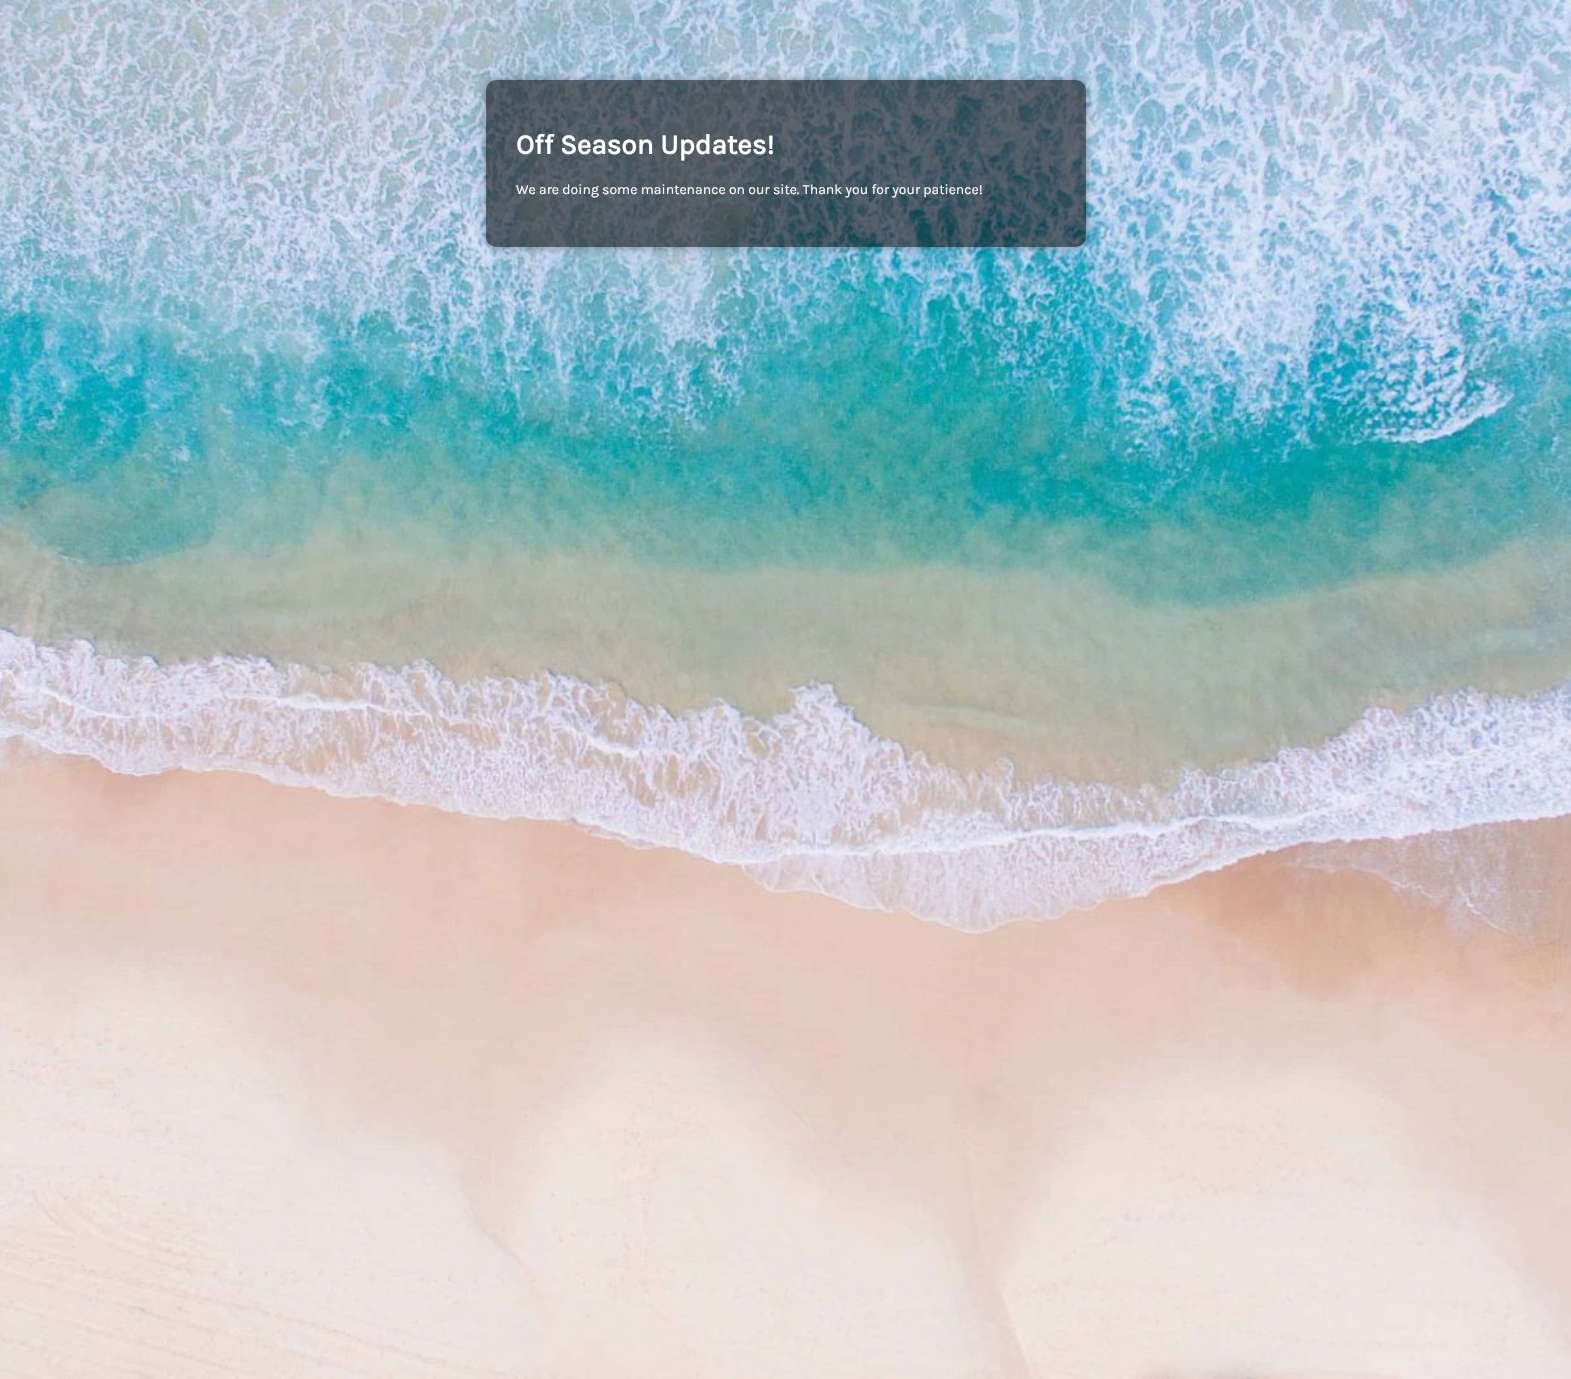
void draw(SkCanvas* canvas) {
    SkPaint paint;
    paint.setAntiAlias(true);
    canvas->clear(0xFFFFFFFF);
    canvas->drawImageRect(SkImages::DeferredFromEncodedData(SkData::MakeFromFileName("img1.png")), SkRect::MakeXYWH(0, 0, 1571, 1379), SkSamplingOptions());
    canvas->save();
    canvas->clipPath(SkPathBuilder(SkPathFillType::kEvenOdd).moveTo(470, 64).lineTo(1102, 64).lineTo(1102, 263).lineTo(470, 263).close().moveTo(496, 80).lineTo(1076, 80).cubicTo(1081.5f, 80, 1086, 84.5f, 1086, 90).lineTo(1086, 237).cubicTo(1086, 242.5f, 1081.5f, 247, 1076, 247).lineTo(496, 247).cubicTo(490.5f, 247, 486, 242.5f, 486, 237).lineTo(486, 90).cubicTo(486, 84.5f, 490.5f, 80, 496, 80).close().detach(), true);
    paint.setColor(0x54000000);
    paint.setMaskFilter(SkMaskFilter::MakeBlur(kNormal_SkBlurStyle, 5));
    canvas->drawRoundRect(SkRect::MakeXYWH(486, 80, 600, 167), 10, 10, paint);
    paint.setMaskFilter(nullptr);
    canvas->restore();
    paint.setColor(0x8C000000);
    canvas->drawRoundRect(SkRect::MakeXYWH(486, 80, 600, 167), 10, 10, paint);
    SkFont font1(fontMgr->matchFamilyStyle("Karla", SkFontStyle::Bold()), 28);
    font1.setSubpixel(true);
    paint.setColor(0xFFFFFFFF);
    canvas->drawString("Off Season Updates!", 516, 154, font1, paint);
    SkFont font2(fontMgr->matchFamilyStyle("Karla", SkFontStyle::Normal()), 14);
    font2.setSubpixel(true);
    canvas->drawString("We are doing some maintenance on our site. Thank you for your patience!", 516, 194, font2, paint);
}
